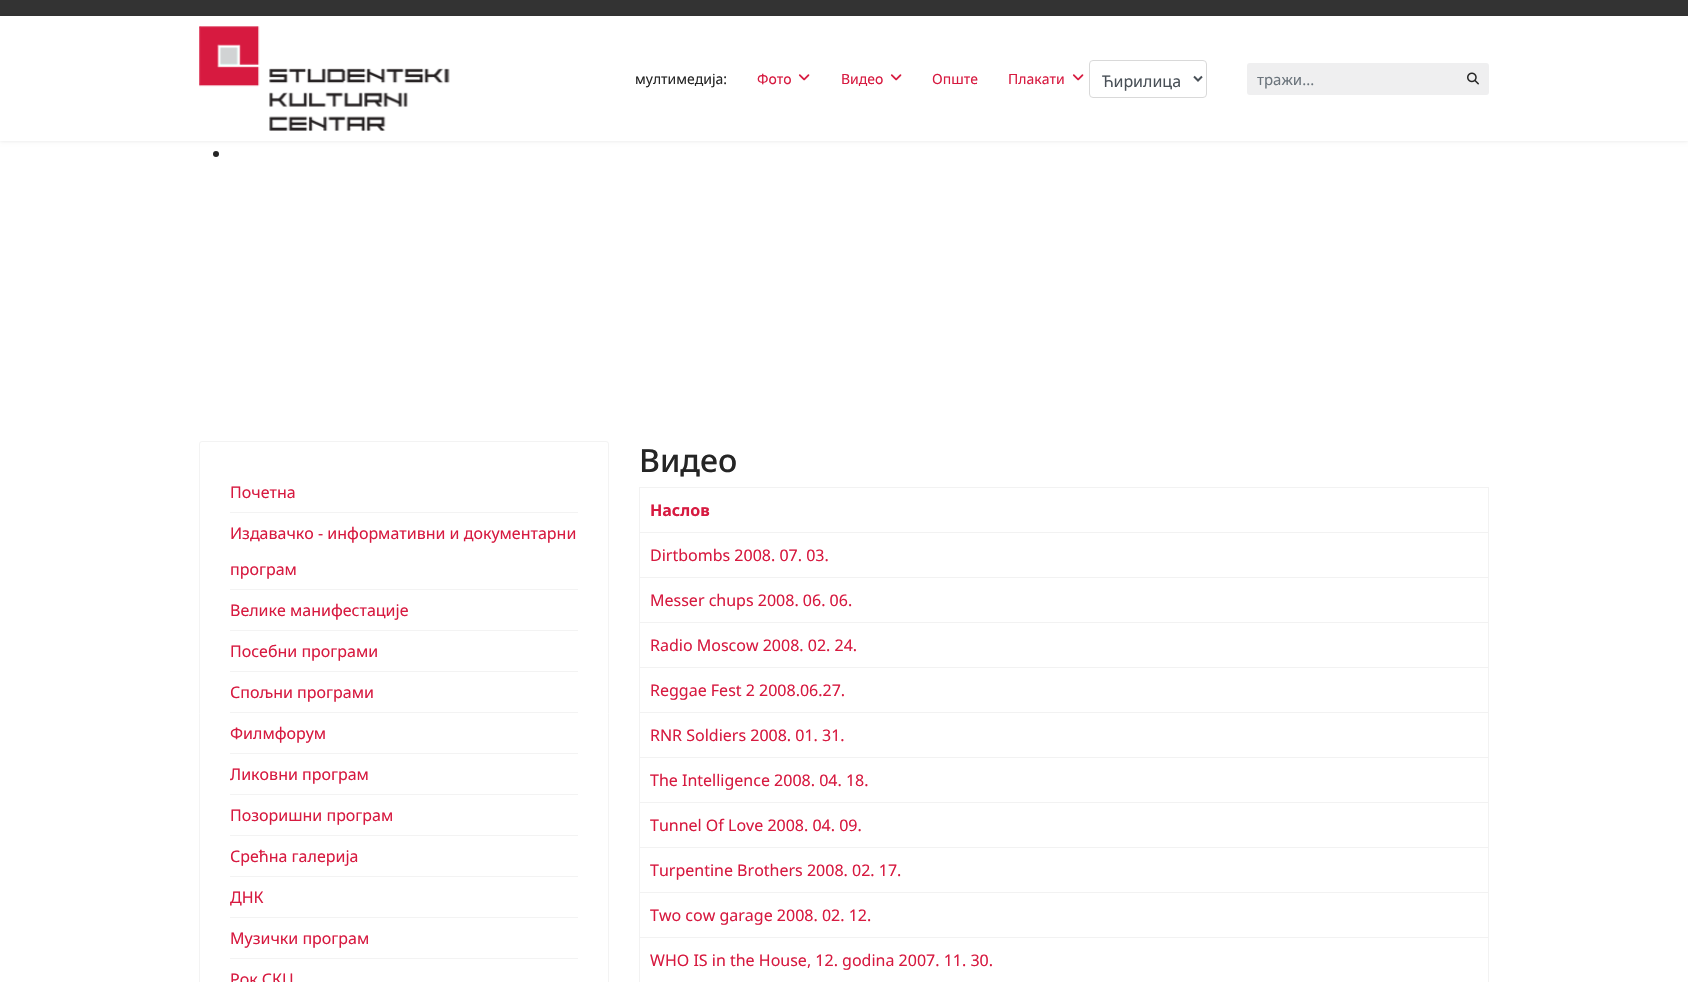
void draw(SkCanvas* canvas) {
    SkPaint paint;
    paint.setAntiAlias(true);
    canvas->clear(0xFFFFFFFF);
    paint.setColor(0xFF333333);
    canvas->drawRect(SkRect::MakeXYWH(0, 0, 1688, 16), paint);
    canvas->save();
    canvas->clipPath(SkPathBuilder(SkPathFillType::kEvenOdd).moveTo(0, 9).lineTo(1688, 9).lineTo(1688, 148).lineTo(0, 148).close().moveTo(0, 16).lineTo(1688, 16).lineTo(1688, 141).lineTo(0, 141).close().detach(), true);
    paint.setColor(0x1A000000);
    paint.setMaskFilter(SkMaskFilter::MakeBlur(kNormal_SkBlurStyle, 2));
    canvas->drawRect(SkRect::MakeXYWH(0, 16, 1688, 125), paint);
    paint.setMaskFilter(nullptr);
    canvas->restore();
    canvas->drawImageRect(SkImages::DeferredFromEncodedData(SkData::MakeFromFileName("img1.png")), SkRect::MakeXYWH(199, 26, 251, 105), SkSamplingOptions());
    SkFont font1(fontMgr->matchFamilyStyle("Noto Sans", SkFontStyle::Normal()), 14);
    font1.setSubpixel(true);
    paint.setColor(0xFF252525);
    canvas->drawString("мултимедија:", 635, 84, font1, paint);
    paint.setColor(0xFFD71A40);
    canvas->drawString("Фото", 757, 84, font1, paint);
    canvas->drawImageRect(SkImages::DeferredFromEncodedData(SkData::MakeFromFileName("img2.png")), SkRect::MakeXYWH(798, 74, 12, 7), SkSamplingOptions());
    canvas->drawString("Видео", 841, 84, font1, paint);
    canvas->drawImageRect(SkImages::DeferredFromEncodedData(SkData::MakeFromFileName("img2.png")), SkRect::MakeXYWH(890, 74, 12, 7), SkSamplingOptions());
    canvas->drawString("Опште", 932, 84, font1, paint);
    canvas->drawString("Плакати", 1008, 84, font1, paint);
    canvas->drawImageRect(SkImages::DeferredFromEncodedData(SkData::MakeFromFileName("img2.png")), SkRect::MakeXYWH(1072, 74, 12, 7), SkSamplingOptions());
    paint.setStyle(SkPaint::kStroke_Style);
    paint.setStrokeWidth(1);
    paint.setColor(0xFFD9D9D9);
    canvas->drawRoundRect(SkRect::MakeXYWH(1089.5f, 60.5f, 117, 37), 3.5f, 3.5f, paint);
    paint.setStrokeWidth(2);
    paint.setColor(0xFF495057);
    canvas->drawPath(SkPathBuilder().moveTo(1194, 76.5f).lineTo(1198, 80.5f).lineTo(1202, 76.5f).detach(), paint);
    SkFont font2(fontMgr->matchFamilyStyle("Noto Sans", SkFontStyle::Normal()), 16);
    font2.setSubpixel(true);
    paint.setStyle(SkPaint::kFill_Style);
    canvas->drawString("Ћирилица", 1102, 87, font2, paint);
    paint.setColor(0xFFEFEFF0);
    canvas->drawRoundRect(SkRect::MakeXYWH(1247, 63, 242, 32), 3, 3, paint);
    SkFont font3(fontMgr->matchFamilyStyle("Noto Sans", SkFontStyle::Normal()), 15);
    font3.setSubpixel(true);
    paint.setColor(0xFF6C757D);
    canvas->drawString("тражи...", 1257, 85, font3, paint);
    canvas->drawImageRect(SkImages::DeferredFromEncodedData(SkData::MakeFromFileName("img3.png")), SkRect::MakeXYWH(1467, 72, 12, 13), SkSamplingOptions());
    paint.setColor(0xFF252525);
    canvas->drawCircle(216, 154, 3, paint);
    paint.setStyle(SkPaint::kStroke_Style);
    paint.setStrokeWidth(1);
    paint.setColor(0xFFF3F3F3);
    canvas->drawRoundRect(SkRect::MakeXYWH(199.5f, 441.5f, 409, 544), 2.5f, 2.5f, paint);
    paint.setStyle(SkPaint::kFill_Style);
    canvas->drawRect(SkRect::MakeXYWH(230, 512, 348, 1), paint);
    paint.setColor(0xFFD71A40);
    canvas->drawString("Почетна", 230, 498, font2, paint);
    paint.setColor(0xFFF3F3F3);
    canvas->drawRect(SkRect::MakeXYWH(230, 589, 348, 1), paint);
    paint.setColor(0xFFD71A40);
    canvas->drawString("Издавачко - информативни и документарни", 230, 539, font2, paint);
    canvas->drawString("програм", 230, 575, font2, paint);
    paint.setColor(0xFFF3F3F3);
    canvas->drawRect(SkRect::MakeXYWH(230, 630, 348, 1), paint);
    paint.setColor(0xFFD71A40);
    canvas->drawString("Велике манифестације", 230, 616, font2, paint);
    paint.setColor(0xFFF3F3F3);
    canvas->drawRect(SkRect::MakeXYWH(230, 671, 348, 1), paint);
    paint.setColor(0xFFD71A40);
    canvas->drawString("Посебни програми", 230, 657, font2, paint);
    paint.setColor(0xFFF3F3F3);
    canvas->drawRect(SkRect::MakeXYWH(230, 712, 348, 1), paint);
    paint.setColor(0xFFD71A40);
    canvas->drawString("Спољни програми", 230, 698, font2, paint);
    paint.setColor(0xFFF3F3F3);
    canvas->drawRect(SkRect::MakeXYWH(230, 753, 348, 1), paint);
    paint.setColor(0xFFD71A40);
    canvas->drawString("Филмфорум", 230, 739, font2, paint);
    paint.setColor(0xFFF3F3F3);
    canvas->drawRect(SkRect::MakeXYWH(230, 794, 348, 1), paint);
    paint.setColor(0xFFD71A40);
    canvas->drawString("Ликовни програм", 230, 780, font2, paint);
    paint.setColor(0xFFF3F3F3);
    canvas->drawRect(SkRect::MakeXYWH(230, 835, 348, 1), paint);
    paint.setColor(0xFFD71A40);
    canvas->drawString("Позоришни програм", 230, 821, font2, paint);
    paint.setColor(0xFFF3F3F3);
    canvas->drawRect(SkRect::MakeXYWH(230, 876, 348, 1), paint);
    paint.setColor(0xFFD71A40);
    canvas->drawString("Срећна галерија", 230, 862, font2, paint);
    paint.setColor(0xFFF3F3F3);
    canvas->drawRect(SkRect::MakeXYWH(230, 917, 348, 1), paint);
    paint.setColor(0xFFD71A40);
    canvas->drawString("ДНК", 230, 903, font2, paint);
    paint.setColor(0xFFF3F3F3);
    canvas->drawRect(SkRect::MakeXYWH(230, 958, 348, 1), paint);
    paint.setColor(0xFFD71A40);
    canvas->drawString("Музички програм", 230, 944, font2, paint);
    canvas->drawString("Рок СКЦ", 230, 985, font2, paint);
    SkFont font4(fontMgr->matchFamilyStyle("Noto Sans", SkFontStyle(500, SkFontStyle::kNormal_Width, SkFontStyle::kUpright_Slant)), 32);
    font4.setSubpixel(true);
    paint.setColor(0xFF252525);
    canvas->drawString("Видео", 639, 472, font4, paint);
    paint.setColor(0xFFF2F2F2);
    canvas->drawRect(SkRect::MakeXYWH(639, 487, 850, 1), paint);
    canvas->drawRect(SkRect::MakeXYWH(639, 532, 850, 1), paint);
    canvas->drawRect(SkRect::MakeXYWH(639, 577, 850, 1), paint);
    canvas->drawRect(SkRect::MakeXYWH(639, 622, 850, 1), paint);
    canvas->drawRect(SkRect::MakeXYWH(639, 667, 850, 1), paint);
    canvas->drawRect(SkRect::MakeXYWH(639, 712, 850, 1), paint);
    canvas->drawRect(SkRect::MakeXYWH(639, 757, 850, 1), paint);
    canvas->drawRect(SkRect::MakeXYWH(639, 802, 850, 1), paint);
    canvas->drawRect(SkRect::MakeXYWH(639, 847, 850, 1), paint);
    canvas->drawRect(SkRect::MakeXYWH(639, 892, 850, 1), paint);
    canvas->drawRect(SkRect::MakeXYWH(639, 937, 850, 1), paint);
    canvas->drawRect(SkRect::MakeXYWH(1488, 937, 1, 45), paint);
    canvas->drawRect(SkRect::MakeXYWH(1488, 892, 1, 46), paint);
    canvas->drawRect(SkRect::MakeXYWH(1488, 847, 1, 46), paint);
    canvas->drawRect(SkRect::MakeXYWH(1488, 802, 1, 46), paint);
    canvas->drawRect(SkRect::MakeXYWH(1488, 757, 1, 46), paint);
    canvas->drawRect(SkRect::MakeXYWH(1488, 712, 1, 46), paint);
    canvas->drawRect(SkRect::MakeXYWH(1488, 667, 1, 46), paint);
    canvas->drawRect(SkRect::MakeXYWH(1488, 622, 1, 46), paint);
    canvas->drawRect(SkRect::MakeXYWH(1488, 577, 1, 46), paint);
    canvas->drawRect(SkRect::MakeXYWH(1488, 532, 1, 46), paint);
    canvas->drawRect(SkRect::MakeXYWH(1488, 487, 1, 46), paint);
    canvas->drawRect(SkRect::MakeXYWH(639, 937, 1, 45), paint);
    canvas->drawRect(SkRect::MakeXYWH(639, 892, 1, 46), paint);
    canvas->drawRect(SkRect::MakeXYWH(639, 847, 1, 46), paint);
    canvas->drawRect(SkRect::MakeXYWH(639, 802, 1, 46), paint);
    canvas->drawRect(SkRect::MakeXYWH(639, 757, 1, 46), paint);
    canvas->drawRect(SkRect::MakeXYWH(639, 712, 1, 46), paint);
    canvas->drawRect(SkRect::MakeXYWH(639, 667, 1, 46), paint);
    canvas->drawRect(SkRect::MakeXYWH(639, 622, 1, 46), paint);
    canvas->drawRect(SkRect::MakeXYWH(639, 577, 1, 46), paint);
    canvas->drawRect(SkRect::MakeXYWH(639, 532, 1, 46), paint);
    canvas->drawRect(SkRect::MakeXYWH(639, 487, 1, 46), paint);
    SkFont font5(fontMgr->matchFamilyStyle("Noto Sans", SkFontStyle::Bold()), 16);
    font5.setSubpixel(true);
    paint.setColor(0xFFD71A40);
    canvas->drawString("Наслов", 650, 516, font5, paint);
    canvas->drawString("Dirtbombs 2008. 07. 03.", 650, 561, font2, paint);
    canvas->drawString("Messer chups 2008. 06. 06.", 650, 606, font2, paint);
    canvas->drawString("Radio Moscow 2008. 02. 24.", 650, 651, font2, paint);
    canvas->drawString("Reggae Fest 2 2008.06.27.", 650, 696, font2, paint);
    canvas->drawString("RNR Soldiers 2008. 01. 31.", 650, 741, font2, paint);
    canvas->drawString("The Intelligence 2008. 04. 18.", 650, 786, font2, paint);
    canvas->drawString("Tunnel Of Love 2008. 04. 09.", 650, 831, font2, paint);
    canvas->drawString("Turpentine Brothers 2008. 02. 17.", 650, 876, font2, paint);
    canvas->drawString("Two cow garage 2008. 02. 12.", 650, 921, font2, paint);
    canvas->drawString("WHO IS in the House, 12. godina 2007. 11. 30.", 650, 966, font2, paint);
}
